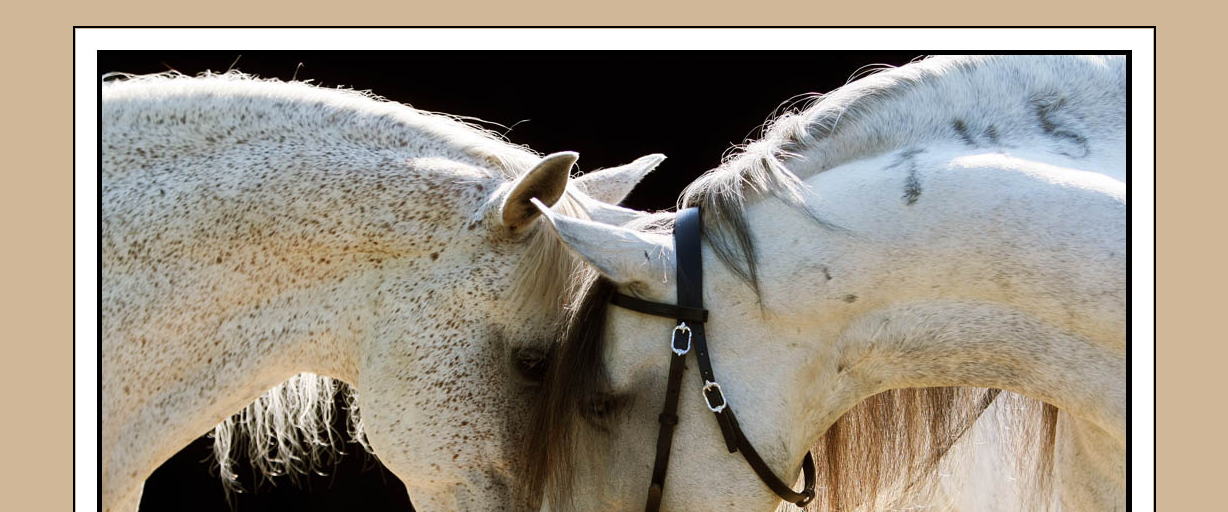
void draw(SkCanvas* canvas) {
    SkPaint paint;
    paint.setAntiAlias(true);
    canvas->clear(0xFFCFB797);
    paint.setStyle(SkPaint::kStroke_Style);
    paint.setStrokeWidth(1);
    paint.setColor(0xFF000000);
    canvas->drawRect(SkRect::MakeXYWH(73.5f, 26.5f, 1082, 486), paint);
    canvas->drawRect(SkRect::MakeXYWH(74.5f, 27.5f, 1080, 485), paint);
    canvas->drawImageRect(SkImages::DeferredFromEncodedData(SkData::MakeFromFileName("img1.png")), SkRect::MakeXYWH(76, 29, 1077, 483), SkSamplingOptions());
}
